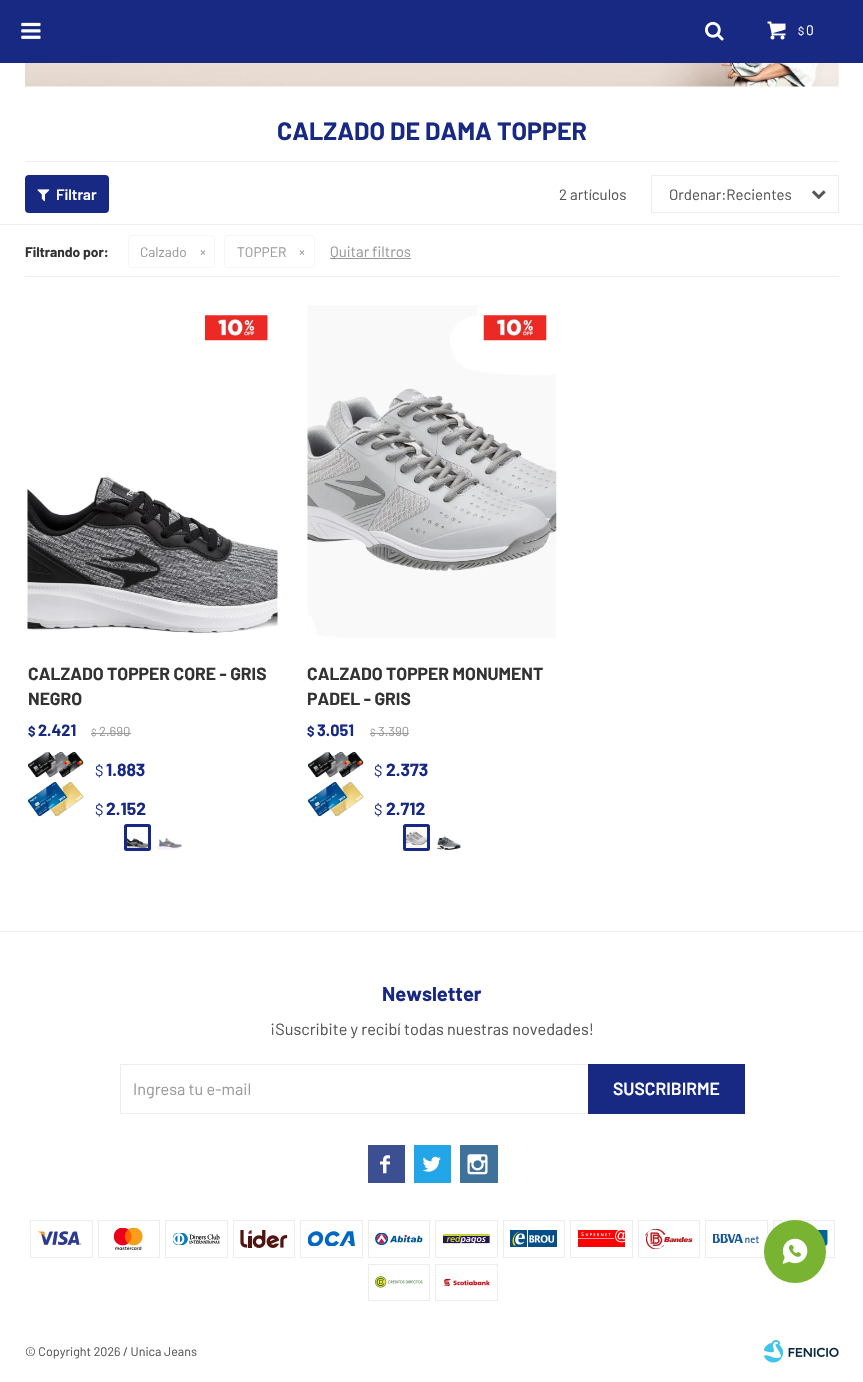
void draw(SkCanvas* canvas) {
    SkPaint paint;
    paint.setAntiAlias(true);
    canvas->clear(0xFFFFFFFF);
    paint.setColor(0xFF172983);
    canvas->drawRect(SkRect::MakeXYWH(0, 0, 863, 63), paint);
    canvas->drawImageRect(SkImages::DeferredFromEncodedData(SkData::MakeFromFileName("img1.png")), SkRect::MakeXYWH(21, 22, 20, 17), SkSamplingOptions());
    canvas->drawImageRect(SkImages::DeferredFromEncodedData(SkData::MakeFromFileName("img2.png")), SkRect::MakeXYWH(705, 21, 19, 20), SkSamplingOptions());
    canvas->drawImageRect(SkImages::DeferredFromEncodedData(SkData::MakeFromFileName("img3.png")), SkRect::MakeXYWH(767, 21, 19, 19), SkSamplingOptions());
    SkFont font1(fontMgr->matchFamilyStyle("Barlow", SkFontStyle::Normal()), 11);
    font1.setSubpixel(true);
    paint.setColor(0xFFFFFFFF);
    canvas->drawString("$", 798, 35, font1, paint);
    SkFont font2(fontMgr->matchFamilyStyle("Barlow", SkFontStyle::Normal()), 13.75f);
    font2.setSubpixel(true);
    canvas->drawString("0", 806, 35, font2, paint);
    canvas->drawImageRect(SkImages::DeferredFromEncodedData(SkData::MakeFromFileName("img4.png")), SkRect::MakeXYWH(25, 63, 814, 24), SkSamplingOptions());
    paint.setColor(0xFFEDEDED);
    canvas->drawRect(SkRect::MakeXYWH(25, 161, 814, 1), paint);
    SkFont font3(fontMgr->matchFamilyStyle("Barlow", SkFontStyle::Bold()), 25);
    font3.setSubpixel(true);
    paint.setColor(0xFF172983);
    canvas->drawString("CALZADO DE DAMA TOPPER", 277, 140, font3, paint);
    canvas->drawRoundRect(SkRect::MakeXYWH(25, 175, 84, 38), 4, 4, paint);
    canvas->drawImageRect(SkImages::DeferredFromEncodedData(SkData::MakeFromFileName("img5.png")), SkRect::MakeXYWH(37, 189, 13, 13), SkSamplingOptions());
    SkFont font4(fontMgr->matchFamilyStyle("Barlow", SkFontStyle(600, SkFontStyle::kNormal_Width, SkFontStyle::kUpright_Slant)), 15);
    font4.setSubpixel(true);
    paint.setColor(0xFFFFFFFF);
    canvas->drawString("Filtrar", 56, 200, font4, paint);
    SkFont font5(fontMgr->matchFamilyStyle("Barlow", SkFontStyle::Normal()), 15);
    font5.setSubpixel(true);
    paint.setColor(0xFF555555);
    canvas->drawString("2 artículos", 559, 200, font5, paint);
    canvas->drawImageRect(SkImages::DeferredFromEncodedData(SkData::MakeFromFileName("img6.png")), SkRect::MakeXYWH(812, 190, 14, 10), SkSamplingOptions());
    paint.setStyle(SkPaint::kStroke_Style);
    paint.setStrokeWidth(1);
    paint.setColor(0xFFEDEDED);
    canvas->drawRect(SkRect::MakeXYWH(651.5f, 175.5f, 187, 37), paint);
    paint.setStyle(SkPaint::kFill_Style);
    paint.setColor(0xFF555555);
    canvas->drawString("Ordenar:Recientes", 669, 200, font5, paint);
    paint.setColor(0xFFEDEDED);
    canvas->drawRect(SkRect::MakeXYWH(0, 224, 863, 1), paint);
    canvas->drawRect(SkRect::MakeXYWH(25, 276, 814, 1), paint);
    SkFont font6(fontMgr->matchFamilyStyle("Barlow", SkFontStyle::Bold()), 13.75f);
    font6.setSubpixel(true);
    paint.setColor(0xFF333333);
    canvas->drawString("Filtrando por:", 25, 257, font6, paint);
    paint.setStyle(SkPaint::kStroke_Style);
    paint.setColor(0xFFF6F6F6);
    canvas->drawRoundRect(SkRect::MakeXYWH(128.5f, 235.5f, 86, 32), 3.5f, 3.5f, paint);
    paint.setStyle(SkPaint::kFill_Style);
    paint.setColor(0xFF999999);
    canvas->drawString("Calzado", 140, 257, font2, paint);
    canvas->drawString("×", 200, 257, font2, paint);
    paint.setStyle(SkPaint::kStroke_Style);
    paint.setColor(0xFFF6F6F6);
    canvas->drawRoundRect(SkRect::MakeXYWH(224.5f, 235.5f, 90, 32), 3.5f, 3.5f, paint);
    paint.setStyle(SkPaint::kFill_Style);
    paint.setColor(0xFF999999);
    canvas->drawString("TOPPER", 237, 257, font2, paint);
    canvas->drawString("×", 299, 257, font2, paint);
    canvas->drawRect(SkRect::MakeXYWH(330, 258, 81, 1), paint);
    canvas->drawString("Quitar filtros", 330, 257, font5, paint);
    canvas->drawImageRect(SkImages::DeferredFromEncodedData(SkData::MakeFromFileName("img7.png")), SkRect::MakeXYWH(205, 315, 63, 26), SkSamplingOptions());
    canvas->drawImageRect(SkImages::DeferredFromEncodedData(SkData::MakeFromFileName("img8.png")), SkRect::MakeXYWH(27, 476, 251, 158), SkSamplingOptions());
    SkFont font7(fontMgr->matchFamilyStyle("Barlow", SkFontStyle::Bold()), 17.5f);
    font7.setSubpixel(true);
    paint.setColor(0xFF333333);
    canvas->drawString("CALZADO TOPPER CORE - GRIS", 28, 680, font7, paint);
    canvas->drawString("NEGRO", 28, 705, font7, paint);
    SkFont font8(fontMgr->matchFamilyStyle("Barlow", SkFontStyle::Bold()), 13);
    font8.setSubpixel(true);
    paint.setColor(0xFF172983);
    canvas->drawString("$", 28, 736, font8, paint);
    SkFont font9(fontMgr->matchFamilyStyle("Barlow", SkFontStyle::Bold()), 16.25f);
    font9.setSubpixel(true);
    canvas->drawString("2.421", 38, 736, font9, paint);
    SkFont font10(fontMgr->matchFamilyStyle("Barlow", SkFontStyle::Normal()), 10);
    font10.setSubpixel(true);
    paint.setColor(0xFF999999);
    canvas->drawString("$", 91, 736, font10, paint);
    SkFont font11(fontMgr->matchFamilyStyle("Barlow", SkFontStyle::Normal()), 13);
    font11.setSubpixel(true);
    canvas->drawString("2.690", 99, 736, font11, paint);
    canvas->drawRect(SkRect::MakeXYWH(91, 733, 40, 1), paint);
    canvas->drawImageRect(SkImages::DeferredFromEncodedData(SkData::MakeFromFileName("img9.png")), SkRect::MakeXYWH(28, 752, 56, 26), SkSamplingOptions());
    paint.setColor(0xFF172983);
    canvas->drawString("$", 95, 776, font5, paint);
    canvas->drawString("1.883", 106, 776, font7, paint);
    canvas->drawImageRect(SkImages::DeferredFromEncodedData(SkData::MakeFromFileName("img10.png")), SkRect::MakeXYWH(28, 782, 56, 35), SkSamplingOptions());
    canvas->drawString("$", 95, 815, font5, paint);
    canvas->drawString("2.152", 106, 815, font7, paint);
    canvas->drawImageRect(SkImages::DeferredFromEncodedData(SkData::MakeFromFileName("img11.png")), SkRect::MakeXYWH(127, 838, 21, 10), SkSamplingOptions());
    paint.setStyle(SkPaint::kStroke_Style);
    paint.setStrokeWidth(3);
    canvas->drawRoundRect(SkRect::MakeXYWH(125.5f, 825.5f, 24, 24), 1, 1, paint);
    canvas->drawImageRect(SkImages::DeferredFromEncodedData(SkData::MakeFromFileName("img12.png")), SkRect::MakeXYWH(158, 838, 24, 12), SkSamplingOptions());
    canvas->drawImageRect(SkImages::DeferredFromEncodedData(SkData::MakeFromFileName("img13.png")), SkRect::MakeXYWH(307, 305, 250, 333), SkSamplingOptions());
    canvas->drawImageRect(SkImages::DeferredFromEncodedData(SkData::MakeFromFileName("img14.png")), SkRect::MakeXYWH(483, 315, 64, 26), SkSamplingOptions());
    paint.setStyle(SkPaint::kFill_Style);
    paint.setColor(0xFF333333);
    canvas->drawString("CALZADO TOPPER MONUMENT", 307, 680, font7, paint);
    canvas->drawString("PADEL - GRIS", 307, 705, font7, paint);
    paint.setColor(0xFF172983);
    canvas->drawString("$", 307, 736, font8, paint);
    canvas->drawString("3.051", 317, 736, font9, paint);
    paint.setColor(0xFF999999);
    canvas->drawString("$", 370, 736, font10, paint);
    canvas->drawString("3.390", 378, 736, font11, paint);
    canvas->drawRect(SkRect::MakeXYWH(370, 733, 39, 1), paint);
    canvas->drawImageRect(SkImages::DeferredFromEncodedData(SkData::MakeFromFileName("img9.png")), SkRect::MakeXYWH(308, 752, 56, 26), SkSamplingOptions());
    paint.setColor(0xFF172983);
    canvas->drawString("$", 374, 776, font5, paint);
    canvas->drawString("2.373", 386, 776, font7, paint);
    canvas->drawImageRect(SkImages::DeferredFromEncodedData(SkData::MakeFromFileName("img10.png")), SkRect::MakeXYWH(308, 782, 56, 35), SkSamplingOptions());
    canvas->drawString("$", 374, 815, font5, paint);
    canvas->drawString("2.712", 386, 815, font7, paint);
    canvas->drawImageRect(SkImages::DeferredFromEncodedData(SkData::MakeFromFileName("img15.png")), SkRect::MakeXYWH(406, 827, 21, 21), SkSamplingOptions());
    paint.setStyle(SkPaint::kStroke_Style);
    canvas->drawRoundRect(SkRect::MakeXYWH(404.5f, 825.5f, 24, 24), 1, 1, paint);
    canvas->drawImageRect(SkImages::DeferredFromEncodedData(SkData::MakeFromFileName("img16.png")), SkRect::MakeXYWH(437, 835, 24, 15), SkSamplingOptions());
    paint.setStyle(SkPaint::kFill_Style);
    paint.setColor(0xFFEDEDED);
    canvas->drawRect(SkRect::MakeXYWH(0, 931, 863, 1), paint);
    SkFont font12(fontMgr->matchFamilyStyle("Barlow", SkFontStyle::Bold()), 20);
    font12.setSubpixel(true);
    paint.setColor(0xFF172983);
    canvas->drawString("Newsletter", 382, 1001, font12, paint);
    SkFont font13(fontMgr->matchFamilyStyle("Barlow", SkFontStyle::Normal()), 16.25f);
    font13.setSubpixel(true);
    paint.setColor(0xFF555555);
    canvas->drawString("¡Suscribite y recibí todas nuestras novedades!", 270, 1035, font13, paint);
    paint.setStyle(SkPaint::kStroke_Style);
    paint.setStrokeWidth(1);
    paint.setColor(0xFFEDEDED);
    canvas->drawRect(SkRect::MakeXYWH(120.5f, 1064.5f, 624, 49), paint);
    paint.setStyle(SkPaint::kFill_Style);
    paint.setColor(0xFF999999);
    canvas->drawString("Ingresa tu e-mail", 133, 1095, font13, paint);
    paint.setColor(0xFF172983);
    canvas->drawRect(SkRect::MakeXYWH(588, 1064, 157, 50), paint);
    SkFont font14(fontMgr->matchFamilyStyle("Barlow", SkFontStyle(600, SkFontStyle::kNormal_Width, SkFontStyle::kUpright_Slant)), 17.5f);
    font14.setSubpixel(true);
    paint.setColor(0xFFFFFFFF);
    canvas->drawString("SUSCRIBIRME", 613, 1095, font14, paint);
    paint.setColor(0xFF3B4F92);
    canvas->drawRect(SkRect::MakeXYWH(368, 1145, 37, 38), paint);
    canvas->drawImageRect(SkImages::DeferredFromEncodedData(SkData::MakeFromFileName("img17.png")), SkRect::MakeXYWH(380, 1155, 10, 19), SkSamplingOptions());
    paint.setColor(0xFF22A6E7);
    canvas->drawRect(SkRect::MakeXYWH(414, 1145, 37, 38), paint);
    canvas->drawImageRect(SkImages::DeferredFromEncodedData(SkData::MakeFromFileName("img18.png")), SkRect::MakeXYWH(422, 1156, 19, 16), SkSamplingOptions());
    paint.setColor(0xFF3F729B);
    canvas->drawRect(SkRect::MakeXYWH(460, 1145, 38, 38), paint);
    canvas->drawImageRect(SkImages::DeferredFromEncodedData(SkData::MakeFromFileName("img19.png")), SkRect::MakeXYWH(467, 1154, 21, 21), SkSamplingOptions());
    paint.setStyle(SkPaint::kStroke_Style);
    paint.setColor(0xFFEDEDED);
    canvas->drawRect(SkRect::MakeXYWH(30.5f, 1220.5f, 62, 37), paint);
    canvas->drawImageRect(SkImages::DeferredFromEncodedData(SkData::MakeFromFileName("img20.png")), SkRect::MakeXYWH(38, 1231, 44, 14), SkSamplingOptions());
    canvas->drawRect(SkRect::MakeXYWH(98.5f, 1220.5f, 61, 37), paint);
    canvas->drawImageRect(SkImages::DeferredFromEncodedData(SkData::MakeFromFileName("img21.png")), SkRect::MakeXYWH(114, 1228, 29, 22), SkSamplingOptions());
    canvas->drawRect(SkRect::MakeXYWH(165.5f, 1220.5f, 62, 37), paint);
    canvas->drawImageRect(SkImages::DeferredFromEncodedData(SkData::MakeFromFileName("img22.png")), SkRect::MakeXYWH(173, 1233, 47, 12), SkSamplingOptions());
    canvas->drawRect(SkRect::MakeXYWH(233.5f, 1220.5f, 61, 37), paint);
    canvas->drawImageRect(SkImages::DeferredFromEncodedData(SkData::MakeFromFileName("img23.png")), SkRect::MakeXYWH(240, 1230, 48, 18), SkSamplingOptions());
    canvas->drawRect(SkRect::MakeXYWH(300.5f, 1220.5f, 62, 37), paint);
    canvas->drawImageRect(SkImages::DeferredFromEncodedData(SkData::MakeFromFileName("img24.png")), SkRect::MakeXYWH(308, 1231, 47, 15), SkSamplingOptions());
    canvas->drawRect(SkRect::MakeXYWH(368.5f, 1220.5f, 61, 37), paint);
    canvas->drawImageRect(SkImages::DeferredFromEncodedData(SkData::MakeFromFileName("img25.png")), SkRect::MakeXYWH(375, 1233, 48, 12), SkSamplingOptions());
    canvas->drawRect(SkRect::MakeXYWH(435.5f, 1220.5f, 62, 37), paint);
    canvas->drawImageRect(SkImages::DeferredFromEncodedData(SkData::MakeFromFileName("img26.png")), SkRect::MakeXYWH(443, 1234, 47, 10), SkSamplingOptions());
    canvas->drawRect(SkRect::MakeXYWH(503.5f, 1220.5f, 61, 37), paint);
    canvas->drawImageRect(SkImages::DeferredFromEncodedData(SkData::MakeFromFileName("img27.png")), SkRect::MakeXYWH(510, 1230, 47, 17), SkSamplingOptions());
    canvas->drawRect(SkRect::MakeXYWH(570.5f, 1220.5f, 62, 37), paint);
    canvas->drawImageRect(SkImages::DeferredFromEncodedData(SkData::MakeFromFileName("img28.png")), SkRect::MakeXYWH(578, 1230, 47, 17), SkSamplingOptions());
    canvas->drawRect(SkRect::MakeXYWH(638.5f, 1220.5f, 61, 37), paint);
    canvas->drawImageRect(SkImages::DeferredFromEncodedData(SkData::MakeFromFileName("img29.png")), SkRect::MakeXYWH(645, 1229, 48, 20), SkSamplingOptions());
    canvas->drawRect(SkRect::MakeXYWH(705.5f, 1220.5f, 62, 37), paint);
    canvas->drawImageRect(SkImages::DeferredFromEncodedData(SkData::MakeFromFileName("img30.png")), SkRect::MakeXYWH(713, 1234, 46, 10), SkSamplingOptions());
    canvas->drawRect(SkRect::MakeXYWH(773.5f, 1220.5f, 61, 37), paint);
    canvas->drawImageRect(SkImages::DeferredFromEncodedData(SkData::MakeFromFileName("img31.png")), SkRect::MakeXYWH(817, 1230, 11, 16), SkSamplingOptions());
    canvas->drawRect(SkRect::MakeXYWH(368.5f, 1264.5f, 61, 36), paint);
    canvas->drawImageRect(SkImages::DeferredFromEncodedData(SkData::MakeFromFileName("img32.png")), SkRect::MakeXYWH(375, 1276, 48, 12), SkSamplingOptions());
    canvas->drawRect(SkRect::MakeXYWH(435.5f, 1264.5f, 62, 36), paint);
    canvas->drawImageRect(SkImages::DeferredFromEncodedData(SkData::MakeFromFileName("img33.png")), SkRect::MakeXYWH(443, 1279, 47, 7), SkSamplingOptions());
    SkFont font15(fontMgr->matchFamilyStyle("Barlow", SkFontStyle::Normal()), 12.5f);
    font15.setSubpixel(true);
    paint.setStyle(SkPaint::kFill_Style);
    paint.setColor(0xFF555555);
    canvas->drawString("© Copyright 2026 / Unica Jeans", 25, 1356, font15, paint);
    canvas->drawImageRect(SkImages::DeferredFromEncodedData(SkData::MakeFromFileName("img34.png")), SkRect::MakeXYWH(764, 1340, 75, 23), SkSamplingOptions());
    paint.setColor(0xFF78B432);
    canvas->drawRoundRect(SkRect::MakeXYWH(764, 1220, 62, 63), 31, 31, paint);
    canvas->drawImageRect(SkImages::DeferredFromEncodedData(SkData::MakeFromFileName("img35.png")), SkRect::MakeXYWH(782, 1238, 26, 26), SkSamplingOptions());
}
